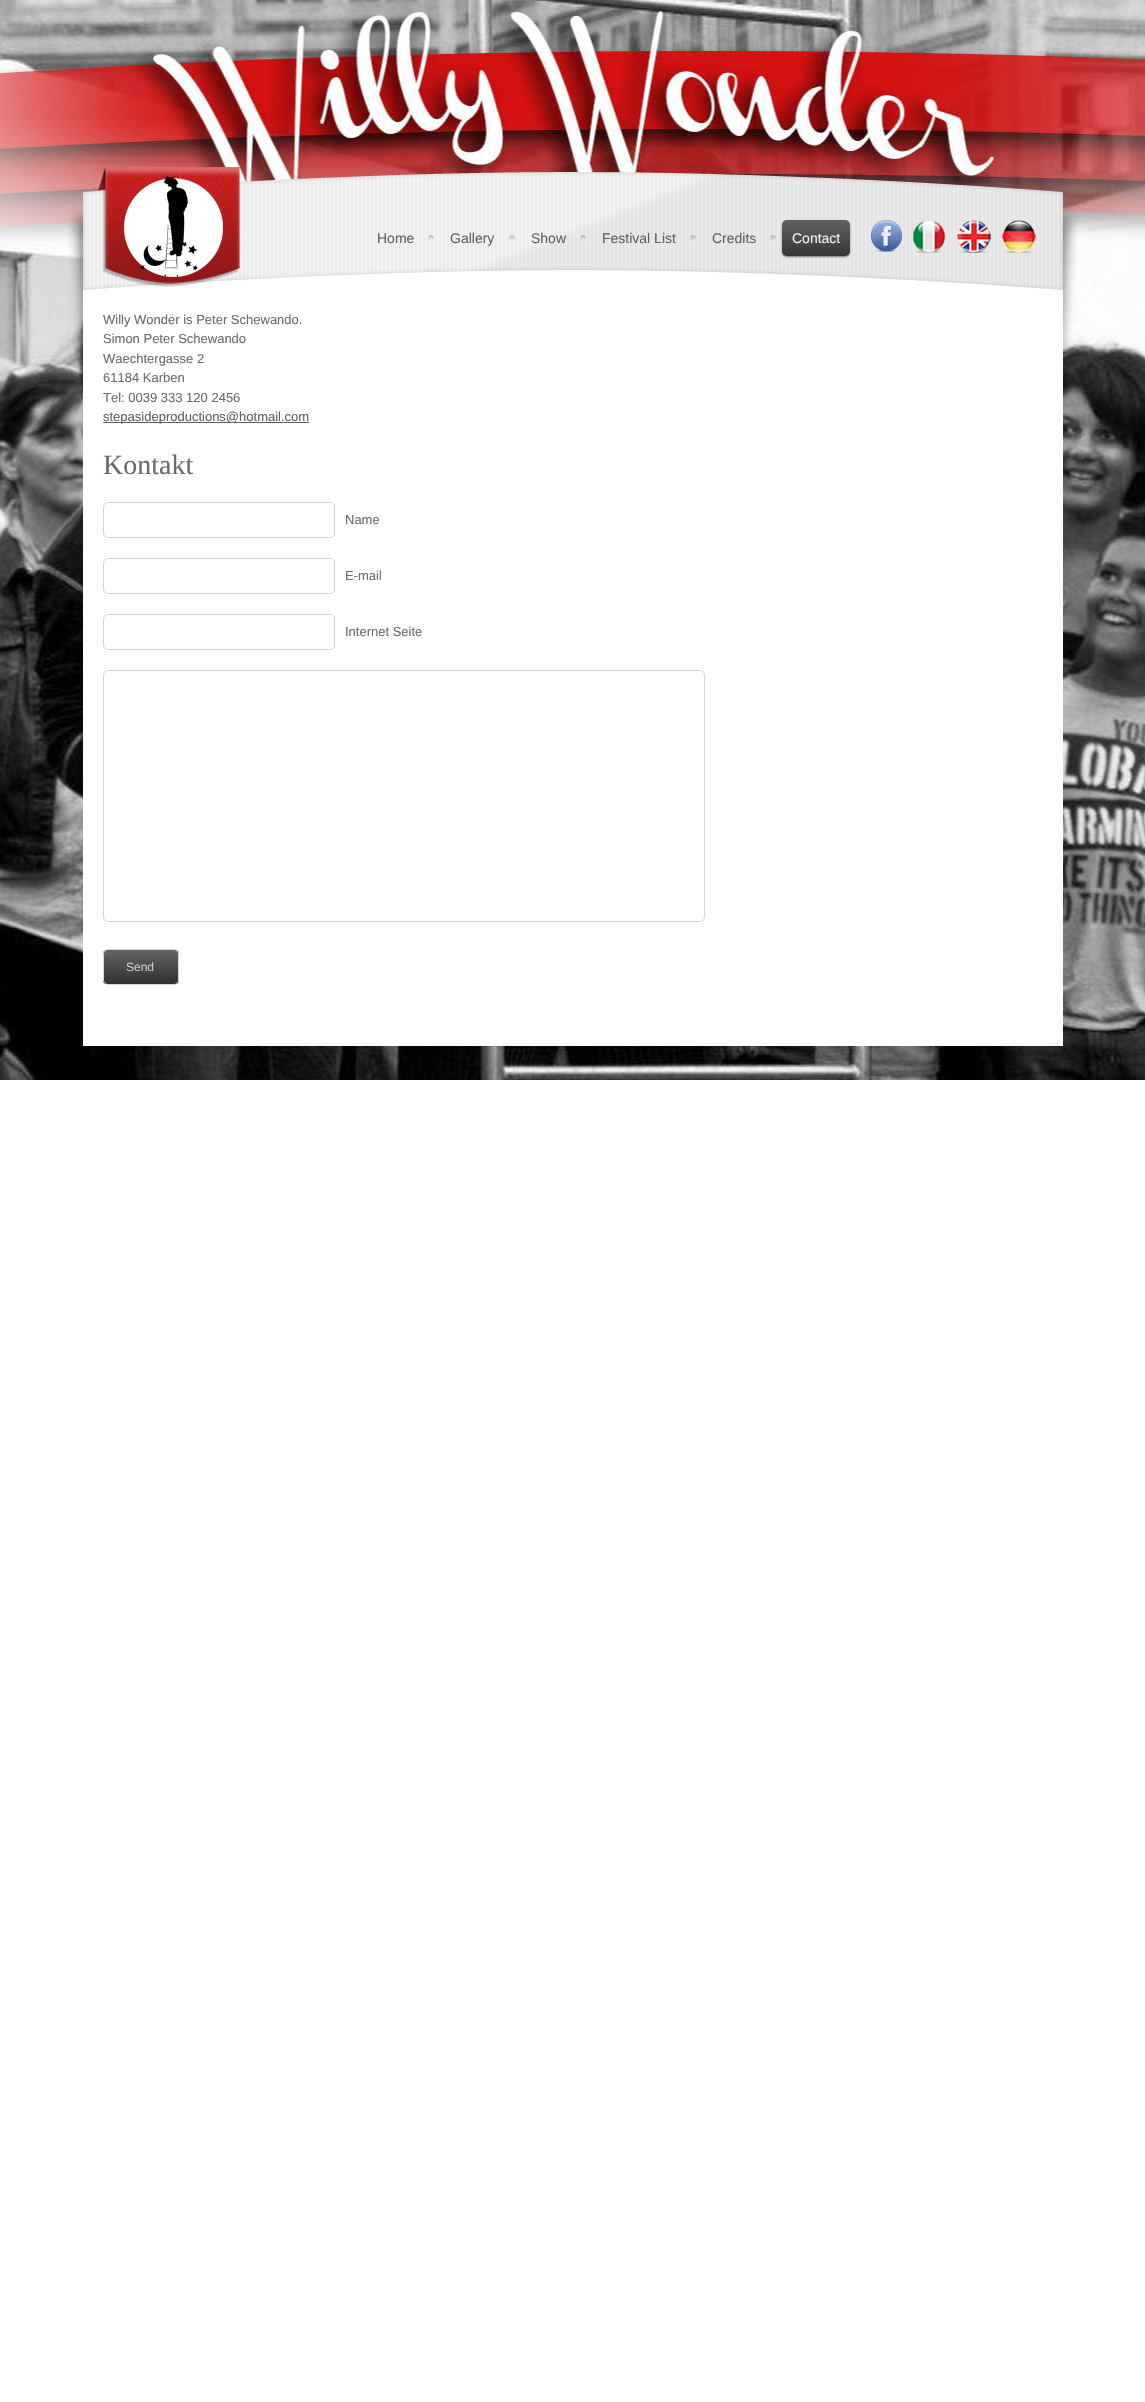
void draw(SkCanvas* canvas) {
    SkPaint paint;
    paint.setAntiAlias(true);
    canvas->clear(0xFFFFFFFF);
    canvas->drawImageRect(SkImages::DeferredFromEncodedData(SkData::MakeFromFileName("img1.png")), SkRect::MakeXYWH(0, 0, 1145, 1080), SkSamplingOptions());
    canvas->drawImageRect(SkImages::DeferredFromEncodedData(SkData::MakeFromFileName("img2.png")), SkRect::MakeXYWH(68, 172, 1010, 300), SkSamplingOptions());
    canvas->drawImageRect(SkImages::DeferredFromEncodedData(SkData::MakeFromFileName("img3.png")), SkRect::MakeXYWH(98, 167, 142, 120), SkSamplingOptions());
    canvas->drawImageRect(SkImages::DeferredFromEncodedData(SkData::MakeFromFileName("img4.png")), SkRect::MakeXYWH(428, 235, 6, 6), SkSamplingOptions());
    SkFont font1(fontMgr->matchFamilyStyle("Liberation Sans", SkFontStyle::Normal()), 14);
    font1.setSubpixel(true);
    paint.setColor(0xFF606060);
    canvas->drawString("Home", 377, 243, font1, paint);
    canvas->drawImageRect(SkImages::DeferredFromEncodedData(SkData::MakeFromFileName("img5.png")), SkRect::MakeXYWH(509, 235, 6, 6), SkSamplingOptions());
    canvas->drawString("Gallery", 450, 243, font1, paint);
    canvas->drawImageRect(SkImages::DeferredFromEncodedData(SkData::MakeFromFileName("img6.png")), SkRect::MakeXYWH(580, 235, 6, 6), SkSamplingOptions());
    canvas->drawString("Show", 531, 243, font1, paint);
    canvas->drawImageRect(SkImages::DeferredFromEncodedData(SkData::MakeFromFileName("img7.png")), SkRect::MakeXYWH(690, 235, 6, 6), SkSamplingOptions());
    canvas->drawString("Festival List", 602, 243, font1, paint);
    canvas->drawImageRect(SkImages::DeferredFromEncodedData(SkData::MakeFromFileName("img7.png")), SkRect::MakeXYWH(770, 235, 6, 6), SkSamplingOptions());
    canvas->drawString("Credits", 712, 243, font1, paint);
    paint.setColor(0x80000000);
    paint.setMaskFilter(SkMaskFilter::MakeBlur(kNormal_SkBlurStyle, 1));
    canvas->drawRoundRect(SkRect::MakeXYWH(782, 221, 68, 36), 5, 5, paint);
    paint.setMaskFilter(nullptr);
    {
        const SkColor colors[] = {0xFF626262, 0xFF353535};
        const float stops[] = {0, 1};
        const SkPoint ends[] = {{782, 220}, {782, 256}};
        paint.setShader(SkGradientShader::MakeLinear(ends, colors, stops, 2, SkTileMode::kClamp));
        paint.setAlpha(255);
    }
    canvas->drawRoundRect(SkRect::MakeXYWH(782, 220, 68, 36), 5, 5, paint);
    paint.setShader(nullptr);
    paint.setColor(0xFFEEEEEE);
    canvas->drawString("Contact", 792, 243, font1, paint);
    canvas->drawImageRect(SkImages::DeferredFromEncodedData(SkData::MakeFromFileName("img8.png")), SkRect::MakeXYWH(871, 220, 31, 32), SkSamplingOptions());
    canvas->drawImageRect(SkImages::DeferredFromEncodedData(SkData::MakeFromFileName("img9.png")), SkRect::MakeXYWH(913, 220, 33, 33), SkSamplingOptions());
    canvas->drawImageRect(SkImages::DeferredFromEncodedData(SkData::MakeFromFileName("img10.png")), SkRect::MakeXYWH(957, 220, 34, 33), SkSamplingOptions());
    canvas->drawImageRect(SkImages::DeferredFromEncodedData(SkData::MakeFromFileName("img11.png")), SkRect::MakeXYWH(1002, 220, 34, 33), SkSamplingOptions());
    paint.setColor(0xFFFFFFFF);
    canvas->drawRect(SkRect::MakeXYWH(83, 472, 980, 574), paint);
    SkFont font2(fontMgr->matchFamilyStyle("Liberation Sans", SkFontStyle::Normal()), 13);
    font2.setSubpixel(true);
    paint.setColor(0xFF6A6A6A);
    canvas->drawString("Willy Wonder is Peter Schewando.", 103, 324, font2, paint);
    canvas->drawString("Simon Peter Schewando", 103, 343, font2, paint);
    canvas->drawString("Waechtergasse 2", 103, 363, font2, paint);
    canvas->drawString("61184 Karben", 103, 382, font2, paint);
    canvas->drawString("Tel: 0039 333 120 2456", 103, 402, font2, paint);
    paint.setColor(0xFF606060);
    canvas->drawRect(SkRect::MakeXYWH(103, 422, 206, 1), paint);
    canvas->drawString("stepasideproductions@hotmail.com", 103, 421, font2, paint);
    SkFont font3(fontMgr->matchFamilyStyle("Liberation Serif", SkFontStyle::Normal()), 28);
    font3.setSubpixel(true);
    paint.setColor(0xFF6A6A6A);
    canvas->drawString("Kontakt", 103, 474, font3, paint);
    paint.setStyle(SkPaint::kStroke_Style);
    paint.setStrokeWidth(1);
    paint.setColor(0xFFD6D6D6);
    canvas->drawRoundRect(SkRect::MakeXYWH(103.5f, 502.5f, 231, 35), 4.5f, 4.5f, paint);
    paint.setStyle(SkPaint::kFill_Style);
    paint.setColor(0xFF6A6A6A);
    canvas->drawString("Name", 345, 524, font2, paint);
    paint.setStyle(SkPaint::kStroke_Style);
    paint.setColor(0xFFD6D6D6);
    canvas->drawRoundRect(SkRect::MakeXYWH(103.5f, 558.5f, 231, 35), 4.5f, 4.5f, paint);
    paint.setStyle(SkPaint::kFill_Style);
    paint.setColor(0xFF6A6A6A);
    canvas->drawString("E-mail", 345, 580, font2, paint);
    paint.setStyle(SkPaint::kStroke_Style);
    paint.setColor(0xFFD6D6D6);
    canvas->drawRoundRect(SkRect::MakeXYWH(103.5f, 614.5f, 231, 35), 4.5f, 4.5f, paint);
    paint.setStyle(SkPaint::kFill_Style);
    paint.setColor(0xFF6A6A6A);
    canvas->drawString("Internet Seite", 345, 636, font2, paint);
    paint.setStyle(SkPaint::kStroke_Style);
    paint.setColor(0xFFD6D6D6);
    canvas->drawRoundRect(SkRect::MakeXYWH(103.5f, 670.5f, 601, 251), 4.5f, 4.5f, paint);
    canvas->save();
    canvas->clipPath(SkPathBuilder().moveTo(108, 949).lineTo(174, 949).cubicTo(177, 949, 179, 951, 179, 954).lineTo(179, 980).cubicTo(179, 983, 177, 985, 174, 985).lineTo(108, 985).cubicTo(105, 985, 103, 983, 103, 980).lineTo(103, 954).cubicTo(103, 951, 105, 949, 108, 949).close().detach(), true);
    paint.setStyle(SkPaint::kFill_Style);
    {
        const SkColor colors[] = {0xFF656464, 0xFF303030};
        const float stops[] = {0, 1};
        const SkPoint ends[] = {{104, 950}, {104, 984}};
        paint.setShader(SkGradientShader::MakeLinear(ends, colors, stops, 2, SkTileMode::kClamp));
        paint.setAlpha(255);
    }
    canvas->drawRect(SkRect::MakeXYWH(103, 950, 76, 34), paint);
    canvas->restore();
    paint.setStyle(SkPaint::kStroke_Style);
    paint.setShader(nullptr);
    paint.setColor(0xFFD6D6D6);
    canvas->drawRoundRect(SkRect::MakeXYWH(103.5f, 949.5f, 75, 35), 4.5f, 4.5f, paint);
    SkFont font4(fontMgr->matchFamilyStyle("Liberation Sans", SkFontStyle::Normal()), 12);
    font4.setSubpixel(true);
    paint.setStyle(SkPaint::kFill_Style);
    paint.setColor(0xFFCBCBCB);
    canvas->drawString("Send", 126, 971, font4, paint);
}
